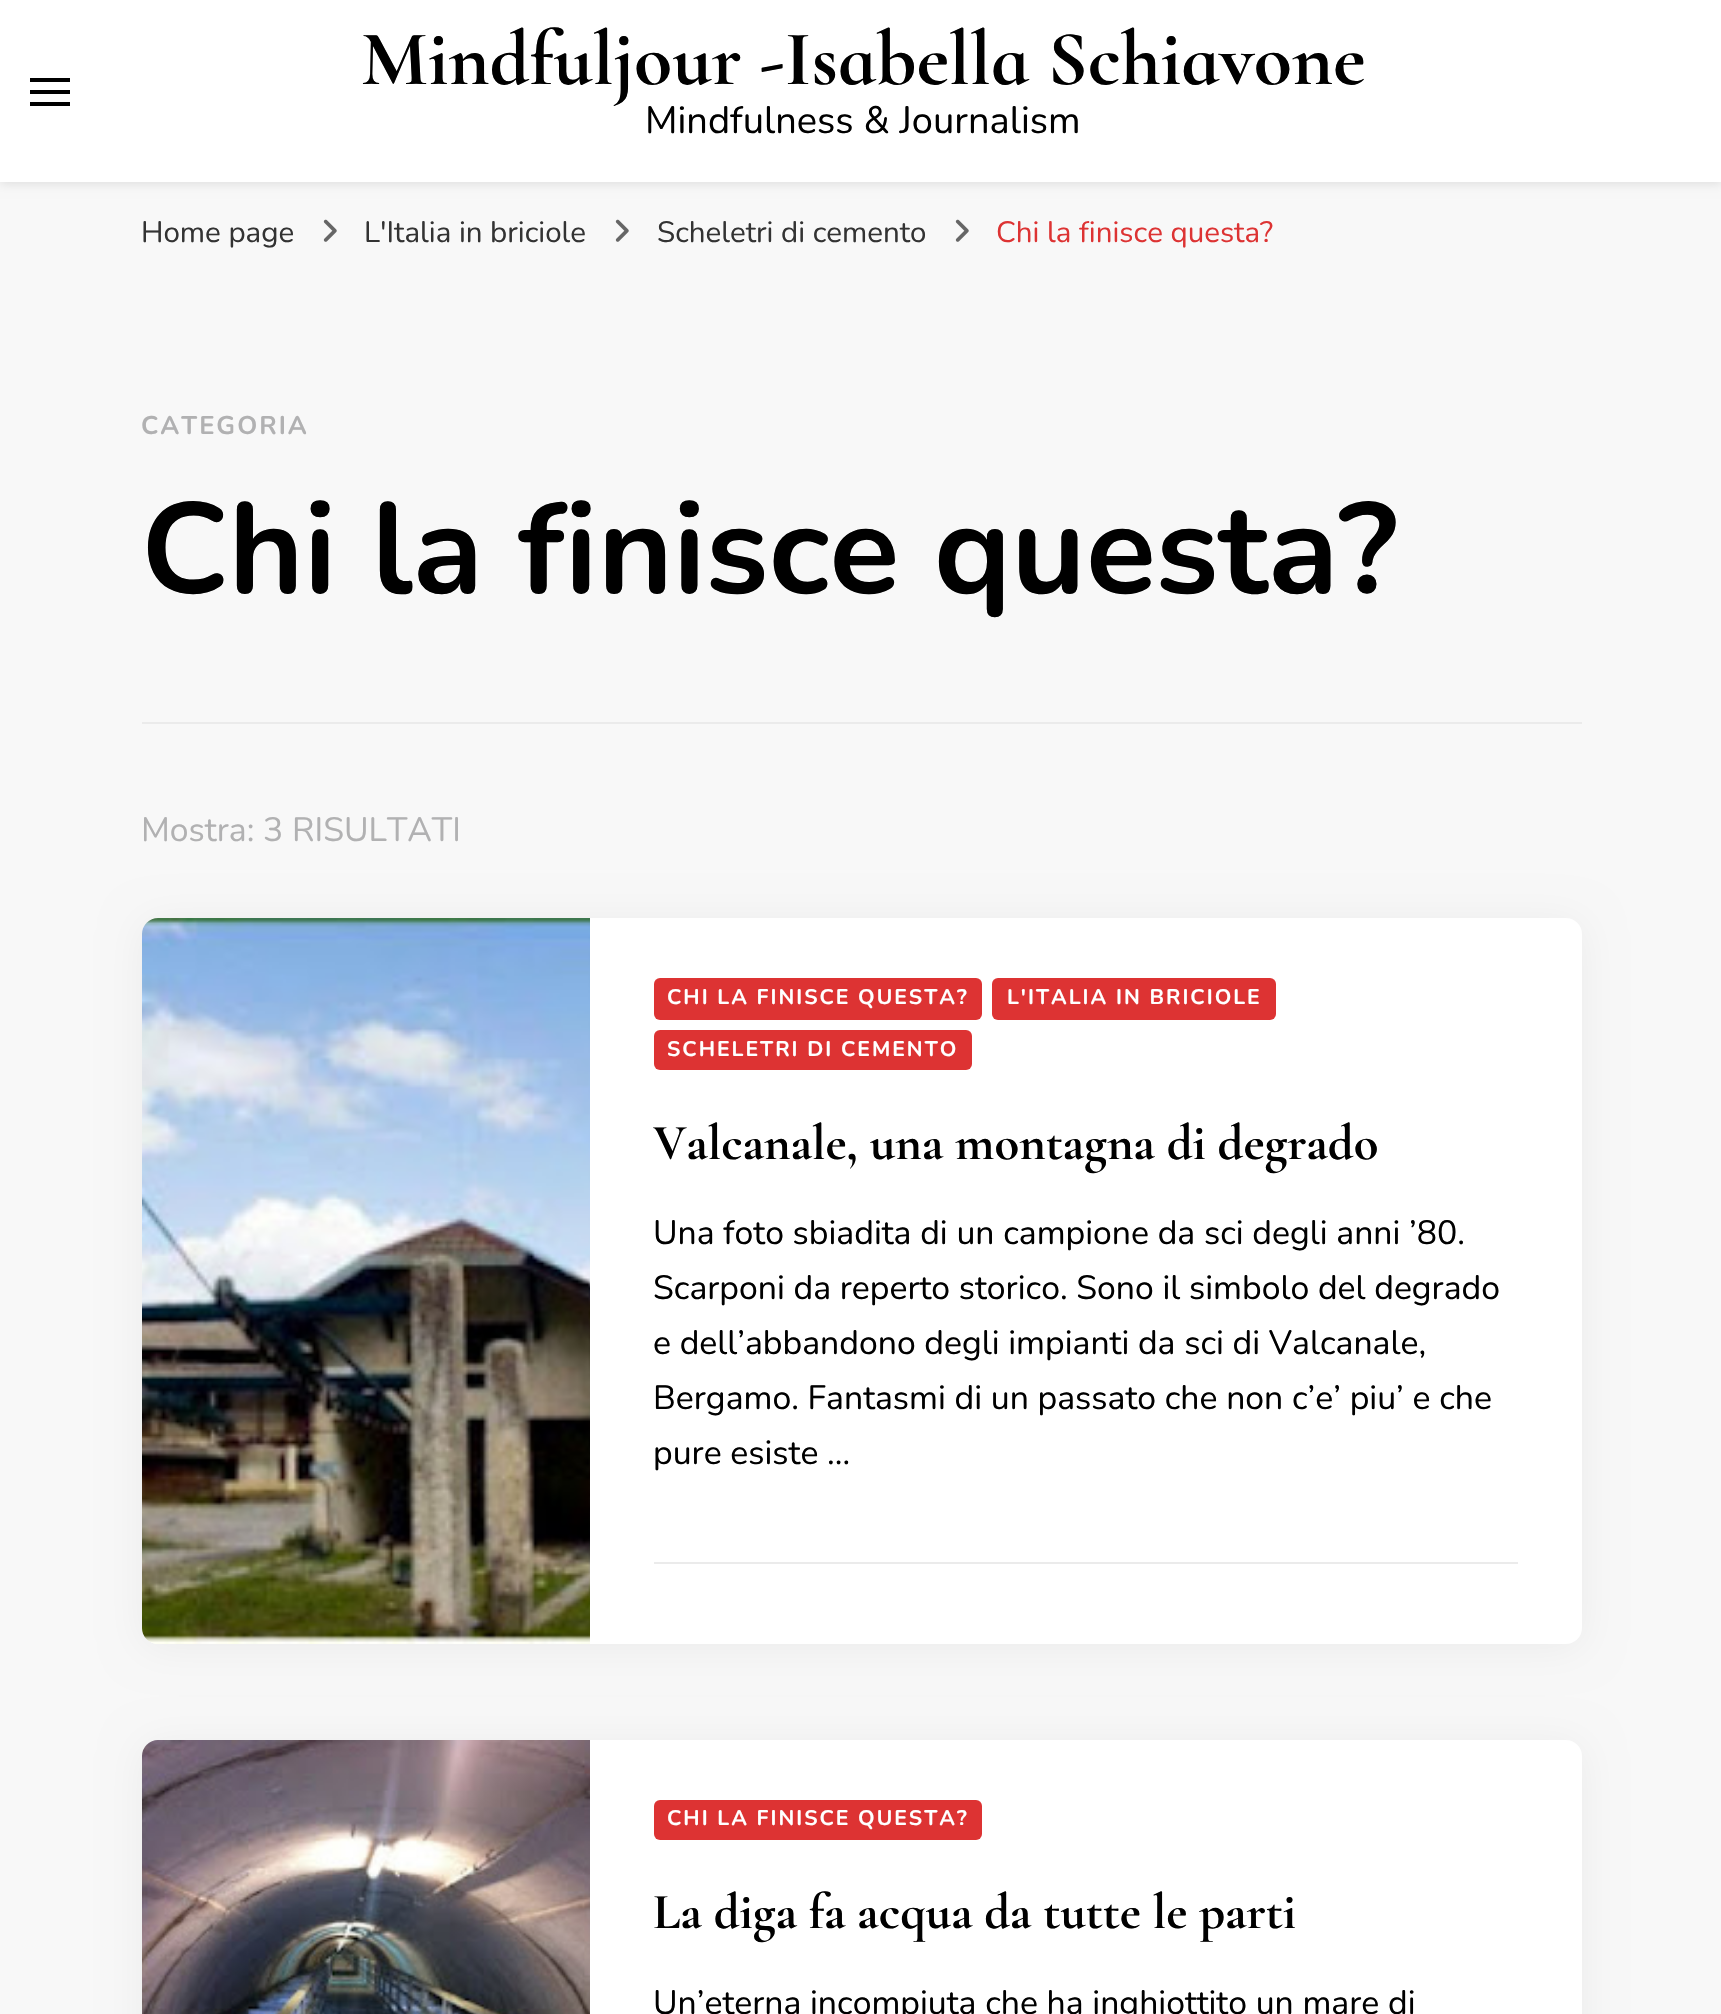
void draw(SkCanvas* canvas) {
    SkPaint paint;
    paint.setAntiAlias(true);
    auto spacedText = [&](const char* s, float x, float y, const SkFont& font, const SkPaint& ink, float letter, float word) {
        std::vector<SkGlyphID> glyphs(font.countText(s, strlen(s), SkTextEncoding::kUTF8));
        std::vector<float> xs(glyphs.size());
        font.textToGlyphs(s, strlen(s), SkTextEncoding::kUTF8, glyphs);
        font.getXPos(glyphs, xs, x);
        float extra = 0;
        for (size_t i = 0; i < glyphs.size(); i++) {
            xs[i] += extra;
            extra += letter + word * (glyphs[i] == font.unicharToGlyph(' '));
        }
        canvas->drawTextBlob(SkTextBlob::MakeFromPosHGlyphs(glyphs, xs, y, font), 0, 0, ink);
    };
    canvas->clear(0xFFF8F8F8);
    paint.setColor(0x1A000000);
    paint.setMaskFilter(SkMaskFilter::MakeBlur(kNormal_SkBlurStyle, 5));
    canvas->drawRect(SkRect::MakeXYWH(0, 2, 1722, 182), paint);
    paint.setMaskFilter(nullptr);
    paint.setColor(0xFFFFFFFF);
    canvas->drawRect(SkRect::MakeXYWH(0, 0, 1721, 182), paint);
    paint.setColor(0xFF000000);
    canvas->drawRect(SkRect::MakeXYWH(30, 78, 40, 4), paint);
    canvas->drawRect(SkRect::MakeXYWH(30, 90, 40, 4), paint);
    canvas->drawRect(SkRect::MakeXYWH(30, 102, 40, 4), paint);
    SkFont font1(fontMgr->matchFamilyStyle("Cormorant Infant", SkFontStyle(300, SkFontStyle::kNormal_Width, SkFontStyle::kUpright_Slant)), 78.1f);
    font1.setSubpixel(true);
    canvas->drawString("Mindfuljour -Isabella Schiavone", 361, 84, font1, paint);
    SkFont font2(fontMgr->matchFamilyStyle("Nunito", SkFontStyle::Normal()), 38);
    font2.setSubpixel(true);
    canvas->drawString("Mindfulness & Journalism", 645, 133, font2, paint);
    SkFont font3(fontMgr->matchFamilyStyle("Nunito", SkFontStyle::Normal()), 29.5f);
    font3.setSubpixel(true);
    paint.setColor(0xFF333333);
    canvas->drawString("Home page", 141, 242, font3, paint);
    canvas->drawImageRect(SkImages::DeferredFromEncodedData(SkData::MakeFromFileName("img1.png")), SkRect::MakeXYWH(323, 219, 14, 23), SkSamplingOptions());
    canvas->drawString("L'Italia in briciole", 364, 242, font3, paint);
    canvas->drawImageRect(SkImages::DeferredFromEncodedData(SkData::MakeFromFileName("img1.png")), SkRect::MakeXYWH(615, 219, 14, 23), SkSamplingOptions());
    canvas->drawString("Scheletri di cemento", 657, 242, font3, paint);
    canvas->drawImageRect(SkImages::DeferredFromEncodedData(SkData::MakeFromFileName("img1.png")), SkRect::MakeXYWH(955, 219, 14, 23), SkSamplingOptions());
    paint.setColor(0xFFDD3333);
    canvas->drawString("Chi la finisce questa?", 996, 242, font3, paint);
    paint.setColor(0xFFEBEBEB);
    canvas->drawRect(SkRect::MakeXYWH(142, 722, 1440, 2), paint);
    SkFont font4(fontMgr->matchFamilyStyle("Nunito", SkFontStyle::Bold()), 25.5f);
    font4.setSubpixel(true);
    paint.setColor(0xFFB1B1B2);
    spacedText("CATEGORIA", 141, 434, font4, paint, 2, 0);
    SkFont font5(fontMgr->matchFamilyStyle("Nunito", SkFontStyle::Bold()), 128.75f);
    font5.setSubpixel(true);
    paint.setColor(0xFF000000);
    canvas->drawString("Chi la finisce questa?", 141, 593, font5, paint);
    SkFont font6(fontMgr->matchFamilyStyle("Nunito", SkFontStyle::Normal()), 33.75f);
    font6.setSubpixel(true);
    paint.setColor(0xFFB1B1B2);
    canvas->drawString("Mostra: 3 RISULTATI", 141, 841, font6, paint);
    paint.setColor(0x0D000000);
    paint.setMaskFilter(SkMaskFilter::MakeBlur(kNormal_SkBlurStyle, 20));
    canvas->drawRoundRect(SkRect::MakeXYWH(142, 922, 1440, 726), 16, 16, paint);
    paint.setMaskFilter(nullptr);
    paint.setColor(0xFFFFFFFF);
    canvas->drawRoundRect(SkRect::MakeXYWH(142, 918, 1440, 726), 16, 16, paint);
    canvas->drawImageRect(SkImages::DeferredFromEncodedData(SkData::MakeFromFileName("img2.png")), SkRect::MakeXYWH(142, 918, 448, 726), SkSamplingOptions());
    paint.setColor(0xFFDD3333);
    canvas->drawRoundRect(SkRect::MakeXYWH(654, 978, 328, 42), 6, 6, paint);
    SkFont font7(fontMgr->matchFamilyStyle("Nunito", SkFontStyle::Bold()), 21.1f);
    font7.setSubpixel(true);
    paint.setColor(0xFFFFFFFF);
    spacedText("CHI LA FINISCE QUESTA?", 667, 1004, font7, paint, 2, 0);
    paint.setColor(0xFFDD3333);
    canvas->drawRoundRect(SkRect::MakeXYWH(992, 978, 284, 42), 6, 6, paint);
    paint.setColor(0xFFFFFFFF);
    spacedText("L'ITALIA IN BRICIOLE", 1007, 1004, font7, paint, 2, 0);
    paint.setColor(0xFFDD3333);
    canvas->drawRoundRect(SkRect::MakeXYWH(654, 1030, 318, 40), 6, 6, paint);
    paint.setColor(0xFFFFFFFF);
    spacedText("SCHELETRI DI CEMENTO", 667, 1056, font7, paint, 2, 0);
    SkFont font8(fontMgr->matchFamilyStyle("Cormorant Garamond", SkFontStyle::Bold()), 50.6f);
    font8.setSubpixel(true);
    paint.setColor(0xFF000000);
    canvas->drawString("Valcanale, una montagna di degrado", 653, 1159, font8, paint);
    canvas->drawString("Una foto sbiadita di un campione da sci degli anni ’80.", 653, 1244, font6, paint);
    canvas->drawString("Scarponi da reperto storico. Sono il simbolo del degrado", 653, 1299, font6, paint);
    canvas->drawString("e dell’abbandono degli impianti da sci di Valcanale,", 653, 1354, font6, paint);
    canvas->drawString("Bergamo. Fantasmi di un passato che non c’e’ piu’ e che", 653, 1409, font6, paint);
    canvas->drawString("pure esiste …", 653, 1464, font6, paint);
    paint.setColor(0xFFEBEBEB);
    canvas->drawRect(SkRect::MakeXYWH(654, 1562, 864, 2), paint);
    paint.setColor(0x0D000000);
    paint.setMaskFilter(SkMaskFilter::MakeBlur(kNormal_SkBlurStyle, 20));
    canvas->drawRoundRect(SkRect::MakeXYWH(142, 1744, 1440, 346), 16, 16, paint);
    paint.setMaskFilter(nullptr);
    paint.setColor(0xFFFFFFFF);
    canvas->drawRoundRect(SkRect::MakeXYWH(142, 1740, 1440, 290), 16, 16, paint);
    canvas->drawImageRect(SkImages::DeferredFromEncodedData(SkData::MakeFromFileName("img3.png")), SkRect::MakeXYWH(142, 1740, 448, 274), SkSamplingOptions());
    paint.setColor(0xFFDD3333);
    canvas->drawRoundRect(SkRect::MakeXYWH(654, 1800, 328, 40), 6, 6, paint);
    paint.setColor(0xFFFFFFFF);
    spacedText("CHI LA FINISCE QUESTA?", 667, 1825, font7, paint, 2, 0);
    paint.setColor(0xFF000000);
    canvas->drawString("La diga fa acqua da tutte le parti", 653, 1928, font8, paint);
    canvas->drawString("Un’eterna incompiuta che ha inghiottito un mare di", 653, 2014, font6, paint);
}
